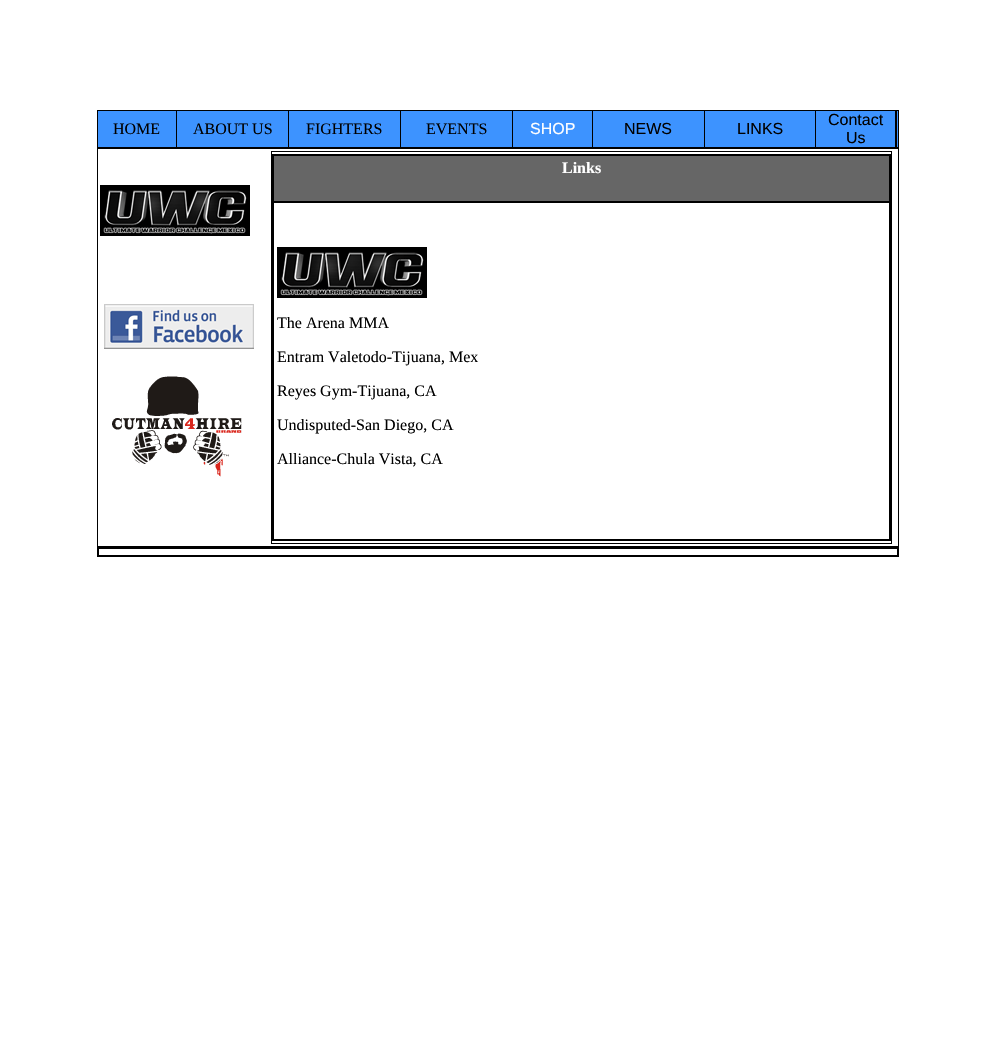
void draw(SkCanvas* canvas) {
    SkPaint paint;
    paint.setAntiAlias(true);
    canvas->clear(0xFFFFFFFF);
    paint.setColor(0xFF000000);
    canvas->drawRect(SkRect::MakeXYWH(97, 110, 802, 1), paint);
    canvas->drawRect(SkRect::MakeXYWH(898, 110, 1, 38), paint);
    paint.setColor(0xFF3D93FF);
    canvas->drawRect(SkRect::MakeXYWH(897, 111, 1, 37), paint);
    paint.setColor(0xFF000000);
    canvas->drawRect(SkRect::MakeXYWH(97, 147, 802, 2), paint);
    canvas->drawRect(SkRect::MakeXYWH(97, 110, 1, 38), paint);
    paint.setColor(0xFF3D93FF);
    canvas->drawRect(SkRect::MakeXYWH(98, 111, 78, 36), paint);
    SkFont font1(fontMgr->matchFamilyStyle("Liberation Serif", SkFontStyle::Normal()), 16);
    font1.setSubpixel(true);
    paint.setColor(0xFF000000);
    canvas->drawString("HOME", 113, 134, font1, paint);
    paint.setColor(0xFF3D93FF);
    canvas->drawRect(SkRect::MakeXYWH(177, 111, 111, 36), paint);
    paint.setColor(0xFF000000);
    canvas->drawRect(SkRect::MakeXYWH(176, 110, 1, 38), paint);
    canvas->drawString("ABOUT US", 193, 134, font1, paint);
    paint.setColor(0xFF3D93FF);
    canvas->drawRect(SkRect::MakeXYWH(289, 111, 111, 36), paint);
    paint.setColor(0xFF000000);
    canvas->drawRect(SkRect::MakeXYWH(288, 110, 1, 38), paint);
    canvas->drawString("FIGHTERS", 306, 134, font1, paint);
    paint.setColor(0xFF3D93FF);
    canvas->drawRect(SkRect::MakeXYWH(401, 111, 111, 36), paint);
    paint.setColor(0xFF000000);
    canvas->drawRect(SkRect::MakeXYWH(400, 110, 1, 38), paint);
    canvas->drawString("EVENTS", 426, 134, font1, paint);
    paint.setColor(0xFF3D93FF);
    canvas->drawRect(SkRect::MakeXYWH(513, 111, 79, 36), paint);
    paint.setColor(0xFF000000);
    canvas->drawRect(SkRect::MakeXYWH(512, 110, 1, 38), paint);
    SkFont font2(fontMgr->matchFamilyStyle("Liberation Sans", SkFontStyle::Normal()), 16);
    font2.setSubpixel(true);
    paint.setColor(0xFFFFFFFF);
    canvas->drawString("SHOP", 530, 134, font2, paint);
    paint.setColor(0xFF3D93FF);
    canvas->drawRect(SkRect::MakeXYWH(593, 111, 111, 36), paint);
    paint.setColor(0xFF000000);
    canvas->drawRect(SkRect::MakeXYWH(592, 110, 1, 38), paint);
    canvas->drawString("NEWS", 624, 134, font2, paint);
    paint.setColor(0xFF3D93FF);
    canvas->drawRect(SkRect::MakeXYWH(705, 111, 110, 36), paint);
    paint.setColor(0xFF000000);
    canvas->drawRect(SkRect::MakeXYWH(704, 110, 1, 38), paint);
    canvas->drawString("LINKS", 737, 134, font2, paint);
    paint.setColor(0xFF3D93FF);
    canvas->drawRect(SkRect::MakeXYWH(816, 111, 79, 36), paint);
    paint.setColor(0xFF000000);
    canvas->drawRect(SkRect::MakeXYWH(815, 110, 1, 38), paint);
    canvas->drawString("Contact", 828, 125, font2, paint);
    canvas->drawString("Us", 846, 143, font2, paint);
    canvas->drawRect(SkRect::MakeXYWH(895, 110, 2, 38), paint);
    canvas->drawRect(SkRect::MakeXYWH(898, 148, 1, 399), paint);
    canvas->drawRect(SkRect::MakeXYWH(97, 546, 802, 1), paint);
    canvas->drawRect(SkRect::MakeXYWH(97, 148, 1, 399), paint);
    canvas->drawImageRect(SkImages::DeferredFromEncodedData(SkData::MakeFromFileName("img1.png")), SkRect::MakeXYWH(100, 185, 150, 51), SkSamplingOptions());
    canvas->drawImageRect(SkImages::DeferredFromEncodedData(SkData::MakeFromFileName("img2.png")), SkRect::MakeXYWH(104, 304, 150, 45), SkSamplingOptions());
    canvas->drawImageRect(SkImages::DeferredFromEncodedData(SkData::MakeFromFileName("img3.png")), SkRect::MakeXYWH(112, 376, 130, 101), SkSamplingOptions());
    canvas->drawRect(SkRect::MakeXYWH(271, 151, 621, 1), paint);
    canvas->drawRect(SkRect::MakeXYWH(891, 151, 1, 393), paint);
    canvas->drawRect(SkRect::MakeXYWH(271, 543, 621, 1), paint);
    canvas->drawRect(SkRect::MakeXYWH(271, 151, 1, 393), paint);
    paint.setStyle(SkPaint::kStroke_Style);
    paint.setStrokeWidth(1);
    canvas->drawRect(SkRect::MakeXYWH(272.5f, 154.5f, 618, 386), paint);
    paint.setStyle(SkPaint::kFill_Style);
    paint.setColor(0xFF666666);
    canvas->drawRect(SkRect::MakeXYWH(273.5f, 155.5f, 616, 46), paint);
    paint.setStyle(SkPaint::kStroke_Style);
    paint.setColor(0xFF000000);
    canvas->drawRect(SkRect::MakeXYWH(273.5f, 155.5f, 616, 46), paint);
    SkFont font3(fontMgr->matchFamilyStyle("Liberation Serif", SkFontStyle::Bold()), 16);
    font3.setSubpixel(true);
    paint.setStyle(SkPaint::kFill_Style);
    paint.setColor(0xFFFFFFFF);
    canvas->drawString("Links", 562, 173, font3, paint);
    paint.setStyle(SkPaint::kStroke_Style);
    paint.setColor(0xFF000000);
    canvas->drawRect(SkRect::MakeXYWH(273.5f, 202.5f, 616, 337), paint);
    canvas->drawImageRect(SkImages::DeferredFromEncodedData(SkData::MakeFromFileName("img1.png")), SkRect::MakeXYWH(277, 247, 150, 51), SkSamplingOptions());
    paint.setStyle(SkPaint::kFill_Style);
    canvas->drawString("The Arena MMA", 277, 328, font1, paint);
    canvas->drawString("Entram Valetodo-Tijuana, Mex", 277, 362, font1, paint);
    canvas->drawString("Reyes Gym-Tijuana, CA", 277, 396, font1, paint);
    canvas->drawString("Undisputed-San Diego, CA", 277, 430, font1, paint);
    canvas->drawString("Alliance-Chula Vista, CA", 277, 464, font1, paint);
    paint.setStyle(SkPaint::kStroke_Style);
    canvas->drawRect(SkRect::MakeXYWH(97.5f, 547.5f, 801, 9), paint);
    canvas->drawRect(SkRect::MakeXYWH(98.5f, 548.5f, 799, 7), paint);
}
